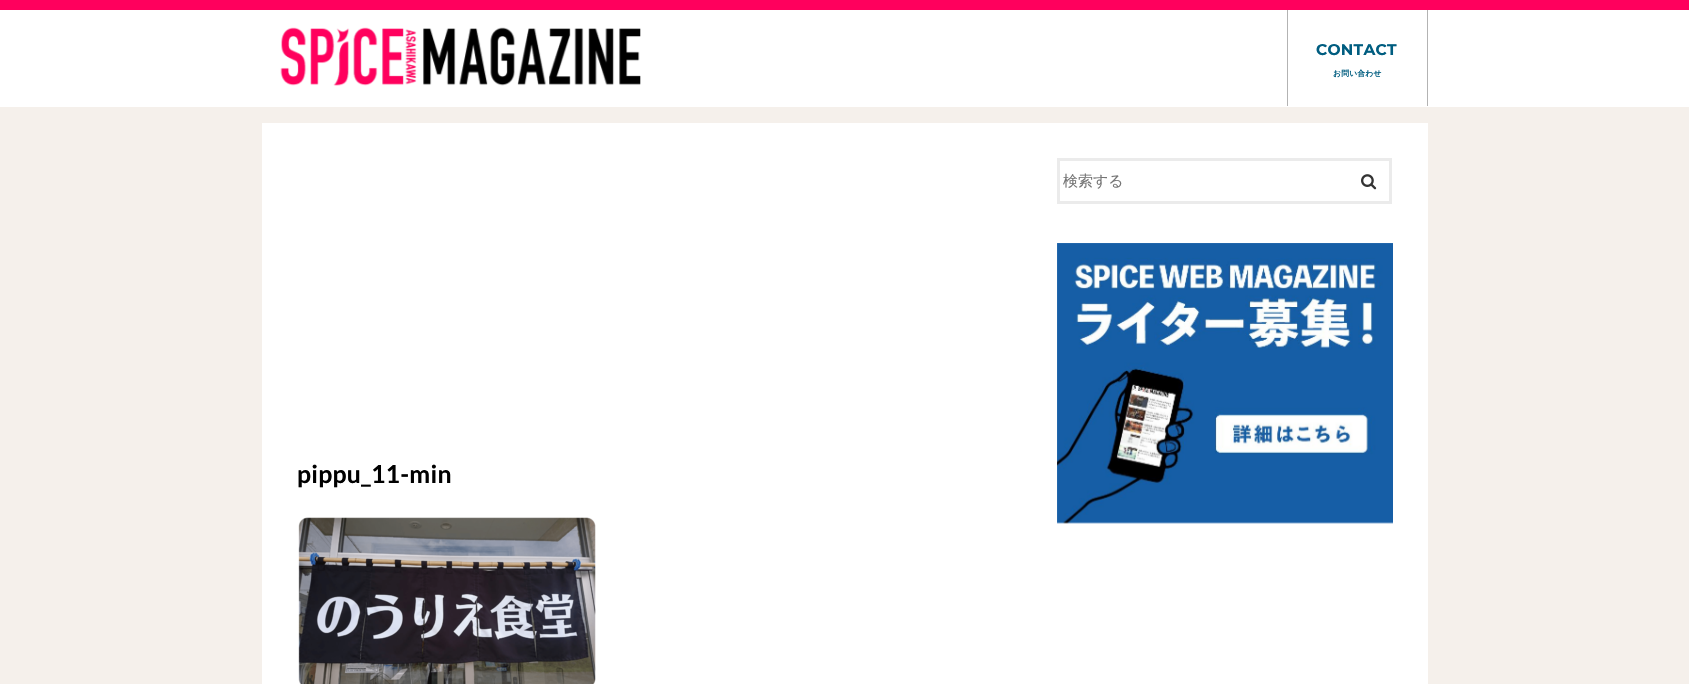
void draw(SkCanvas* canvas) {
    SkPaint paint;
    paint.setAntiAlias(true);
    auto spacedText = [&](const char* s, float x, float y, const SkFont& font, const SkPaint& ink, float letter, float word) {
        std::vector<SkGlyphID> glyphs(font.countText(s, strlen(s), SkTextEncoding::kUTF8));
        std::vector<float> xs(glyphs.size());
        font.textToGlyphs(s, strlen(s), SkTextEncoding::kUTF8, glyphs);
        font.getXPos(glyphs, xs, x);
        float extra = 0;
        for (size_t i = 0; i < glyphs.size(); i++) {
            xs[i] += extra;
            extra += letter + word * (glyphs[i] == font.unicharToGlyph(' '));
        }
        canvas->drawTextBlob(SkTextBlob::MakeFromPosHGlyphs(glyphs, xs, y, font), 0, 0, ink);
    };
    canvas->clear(0xFFF5F0EB);
    paint.setColor(0xFFFF005D);
    canvas->drawRect(SkRect::MakeXYWH(0, 0, 1689, 10), paint);
    paint.setColor(0xFFFFFFFF);
    canvas->drawRect(SkRect::MakeXYWH(0, 10, 1689, 97), paint);
    canvas->drawImageRect(SkImages::DeferredFromEncodedData(SkData::MakeFromFileName("img1.png")), SkRect::MakeXYWH(280, 27, 361, 59), SkSamplingOptions());
    paint.setColor(0xFFB3B3B3);
    canvas->drawRect(SkRect::MakeXYWH(1427, 10, 1, 96), paint);
    canvas->drawRect(SkRect::MakeXYWH(1287, 10, 1, 96), paint);
    SkFont font1(fontMgr->matchFamilyStyle("Montserrat", SkFontStyle::Bold()), 15.5f);
    font1.setSubpixel(true);
    paint.setColor(0xFF005D80);
    spacedText("CONTACT", 1316, 55, font1, paint, 0.25f, 0);
    SkFont font2(fontMgr->matchFamilyStyle("WenQuanYi Zen Hei", SkFontStyle::Bold()), 7.75f);
    font2.setSubpixel(true);
    spacedText("お問い合わせ", 1333, 76, font2, paint, 0.25f, 0);
    paint.setColor(0xFFFFFFFF);
    canvas->drawRect(SkRect::MakeXYWH(262, 123, 1166, 561), paint);
    paint.setStyle(SkPaint::kStroke_Style);
    paint.setStrokeWidth(3);
    paint.setColor(0xFFEBEBEB);
    canvas->drawPath(SkPathBuilder().moveTo(1058.5f, 159.5f).lineTo(1390.5f, 159.5f).lineTo(1390.5f, 202.5f).lineTo(1058.5f, 202.5f).close().detach(), paint);
    SkFont font3(fontMgr->matchFamilyStyle("WenQuanYi Zen Hei", SkFontStyle(500, SkFontStyle::kNormal_Width, SkFontStyle::kUpright_Slant)), 15);
    font3.setSubpixel(true);
    paint.setStyle(SkPaint::kFill_Style);
    paint.setColor(0xFF757575);
    canvas->drawString("検索する", 1063, 186, font3, paint);
    canvas->drawImageRect(SkImages::DeferredFromEncodedData(SkData::MakeFromFileName("img2.png")), SkRect::MakeXYWH(1361, 174, 16, 16), SkSamplingOptions());
    canvas->drawImageRect(SkImages::DeferredFromEncodedData(SkData::MakeFromFileName("img3.png")), SkRect::MakeXYWH(1057, 243, 336, 281), SkSamplingOptions());
    SkFont font4(fontMgr->matchFamilyStyle("Lato", SkFontStyle::Bold()), 24.75f);
    font4.setSubpixel(true);
    paint.setColor(0xFF000000);
    spacedText("pippu_11-min", 297, 483, font4, paint, 0.25f, 0);
    canvas->drawImageRect(SkImages::DeferredFromEncodedData(SkData::MakeFromFileName("img4.png")), SkRect::MakeXYWH(298, 517, 298, 167), SkSamplingOptions());
}
